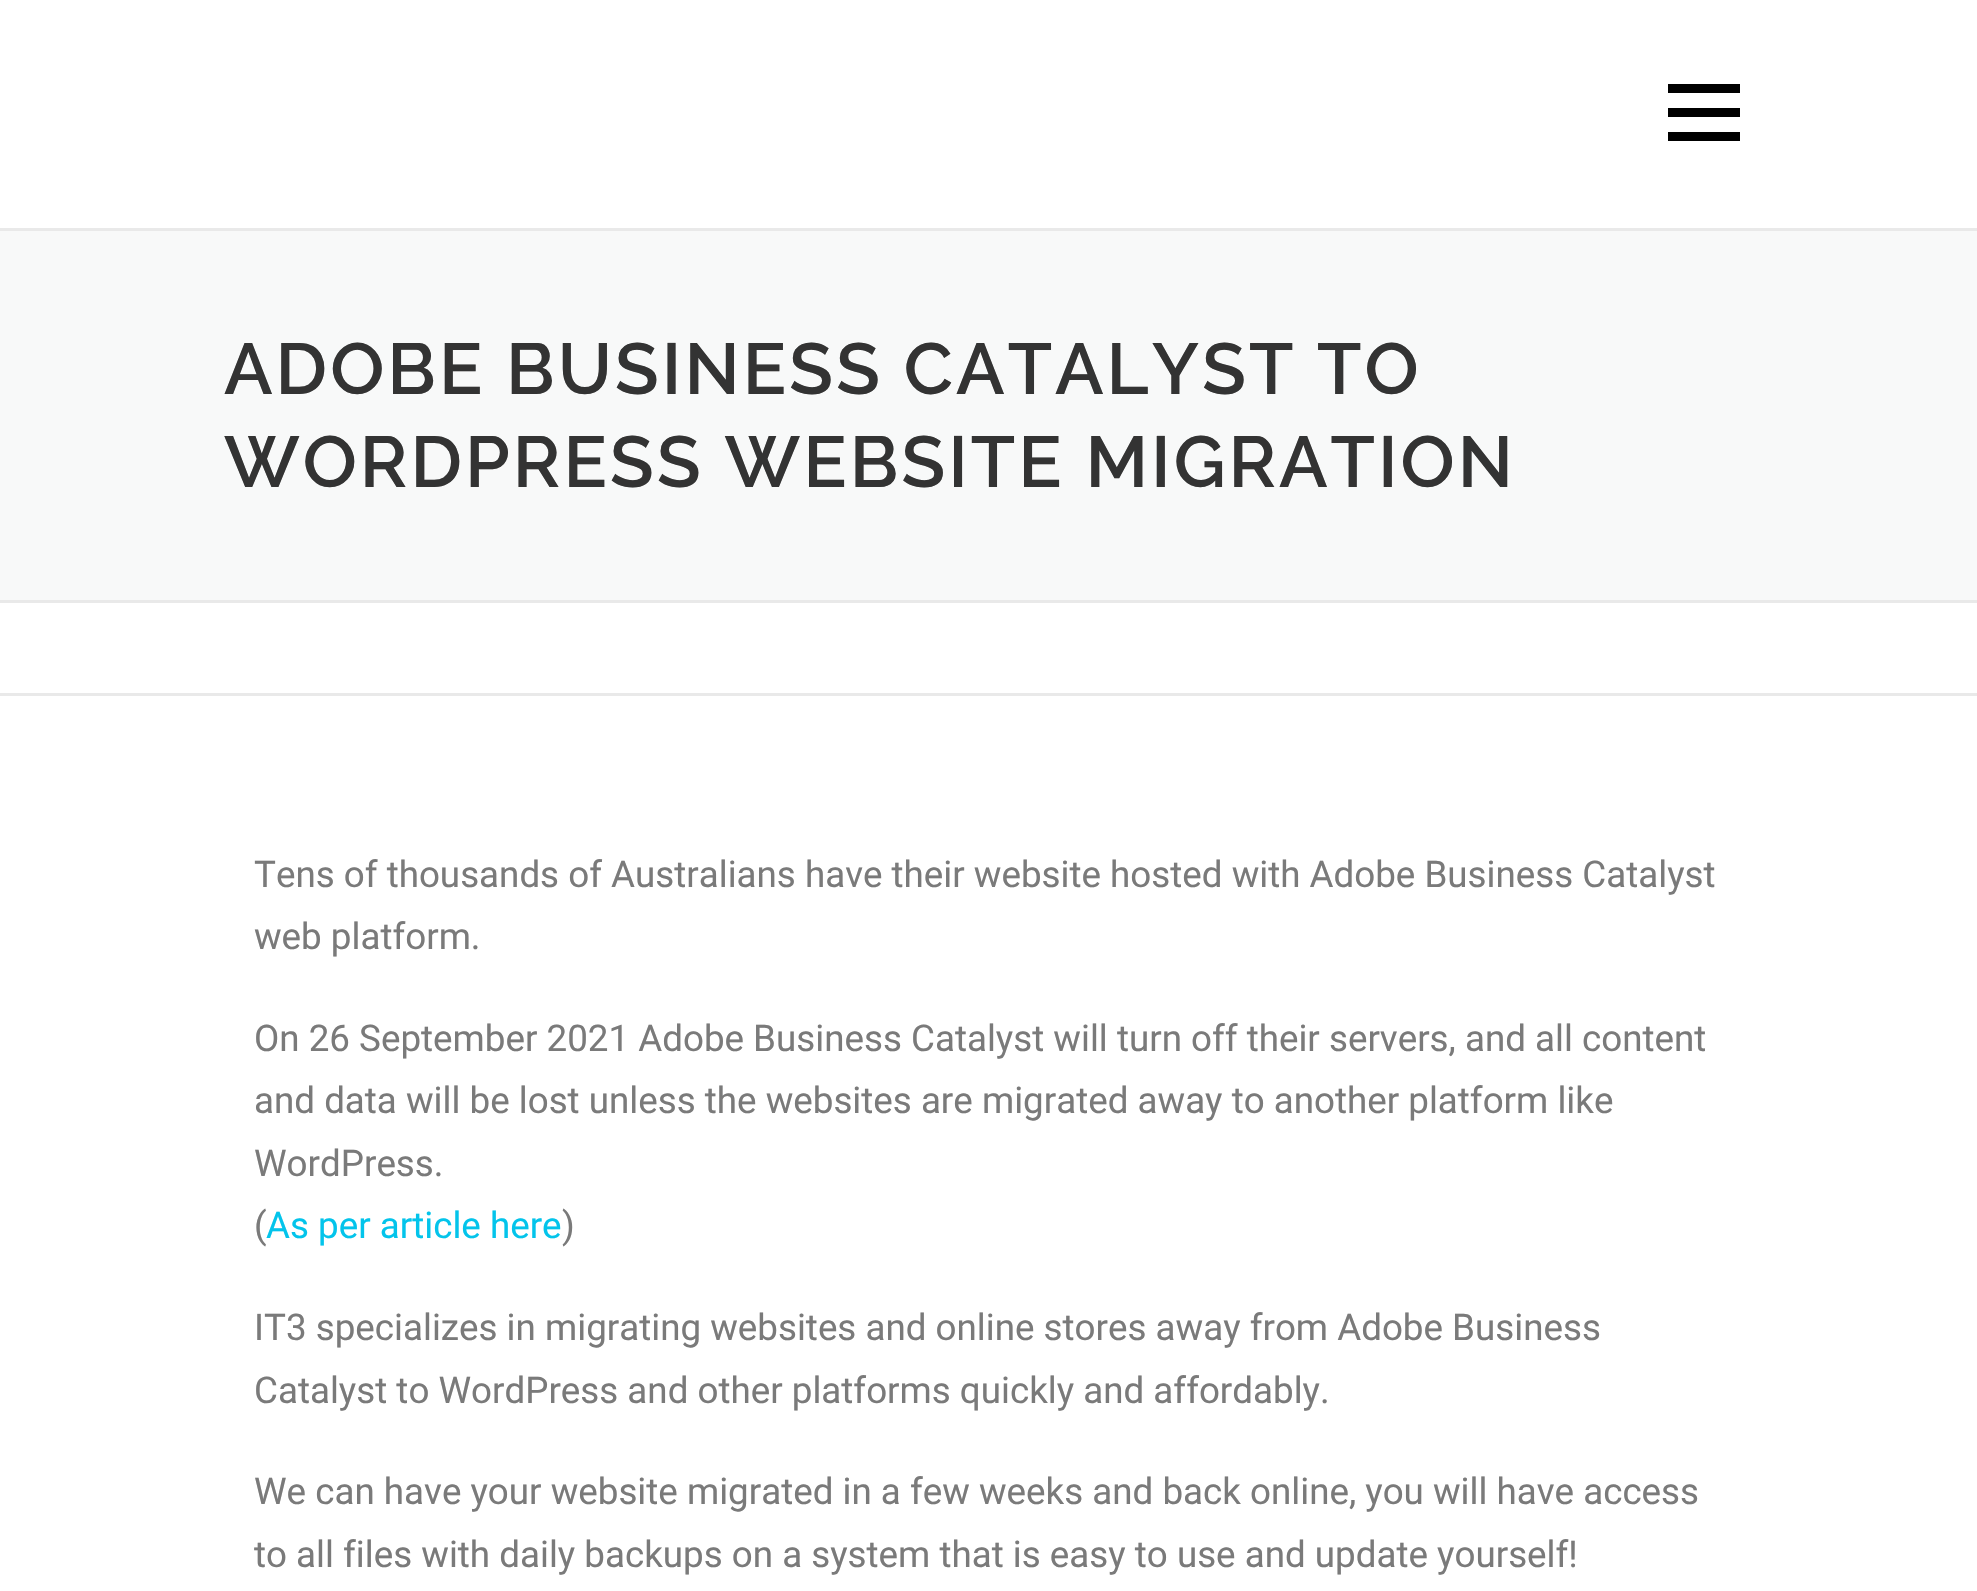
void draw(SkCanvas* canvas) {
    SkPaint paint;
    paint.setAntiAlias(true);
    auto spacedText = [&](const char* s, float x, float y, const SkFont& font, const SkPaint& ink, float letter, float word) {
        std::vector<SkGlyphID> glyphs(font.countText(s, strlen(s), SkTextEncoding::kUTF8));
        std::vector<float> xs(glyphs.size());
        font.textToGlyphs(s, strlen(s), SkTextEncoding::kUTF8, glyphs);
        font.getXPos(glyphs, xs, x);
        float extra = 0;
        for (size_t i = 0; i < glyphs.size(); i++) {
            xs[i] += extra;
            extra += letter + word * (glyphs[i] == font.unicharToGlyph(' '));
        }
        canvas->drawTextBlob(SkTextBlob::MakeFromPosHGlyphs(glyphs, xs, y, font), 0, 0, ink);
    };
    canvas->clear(0xFFFFFFFF);
    paint.setColor(0xFF000000);
    canvas->drawRect(SkRect::MakeXYWH(1668, 108, 72, 9), paint);
    canvas->drawRect(SkRect::MakeXYWH(1668, 84, 72, 9), paint);
    canvas->drawRect(SkRect::MakeXYWH(1668, 132, 72, 9), paint);
    paint.setColor(0xFFF8F9F9);
    canvas->drawRect(SkRect::MakeXYWH(0, 231, 1977, 369), paint);
    paint.setColor(0xFFE9E9E9);
    canvas->drawRect(SkRect::MakeXYWH(0, 228, 1977, 3), paint);
    canvas->drawRect(SkRect::MakeXYWH(0, 600, 1977, 3), paint);
    SkFont font1(fontMgr->matchFamilyStyle("Raleway", SkFontStyle(600, SkFontStyle::kNormal_Width, SkFontStyle::kUpright_Slant)), 72);
    font1.setSubpixel(true);
    paint.setColor(0xFF333333);
    spacedText("ADOBE BUSINESS CATALYST TO", 224, 394, font1, paint, 3, 0);
    spacedText("WORDPRESS WEBSITE MIGRATION", 224, 487, font1, paint, 3, 0);
    paint.setColor(0xFFE9E9E9);
    canvas->drawRect(SkRect::MakeXYWH(0, 693, 1977, 3), paint);
    SkFont font2(fontMgr->matchFamilyStyle("Roboto", SkFontStyle::Normal()), 36.75f);
    font2.setSubpixel(true);
    paint.setColor(0xFF7A7A7A);
    canvas->drawString("Tens of thousands of Australians have their website hosted with Adobe Business Catalyst", 254, 887, font2, paint);
    canvas->drawString("web platform.", 254, 949, font2, paint);
    canvas->drawString("On 26 September 2021 Adobe Business Catalyst will turn off their servers, and all content", 254, 1051, font2, paint);
    canvas->drawString("and data will be lost unless the websites are migrated away to another platform like", 254, 1113, font2, paint);
    canvas->drawString("WordPress.", 254, 1176, font2, paint);
    canvas->drawString("(", 254, 1238, font2, paint);
    paint.setColor(0xFF03C4EB);
    canvas->drawString("As per article here", 266, 1238, font2, paint);
    paint.setColor(0xFF7A7A7A);
    canvas->drawString(")", 562, 1238, font2, paint);
    canvas->drawString("IT3 specializes in migrating websites and online stores away from Adobe Business", 254, 1340, font2, paint);
    canvas->drawString("Catalyst to WordPress and other platforms quickly and affordably.", 254, 1403, font2, paint);
    canvas->drawString("We can have your website migrated in a few weeks and back online, you will have access", 254, 1504, font2, paint);
    canvas->drawString("to all files with daily backups on a system that is easy to use and update yourself!", 254, 1567, font2, paint);
}
